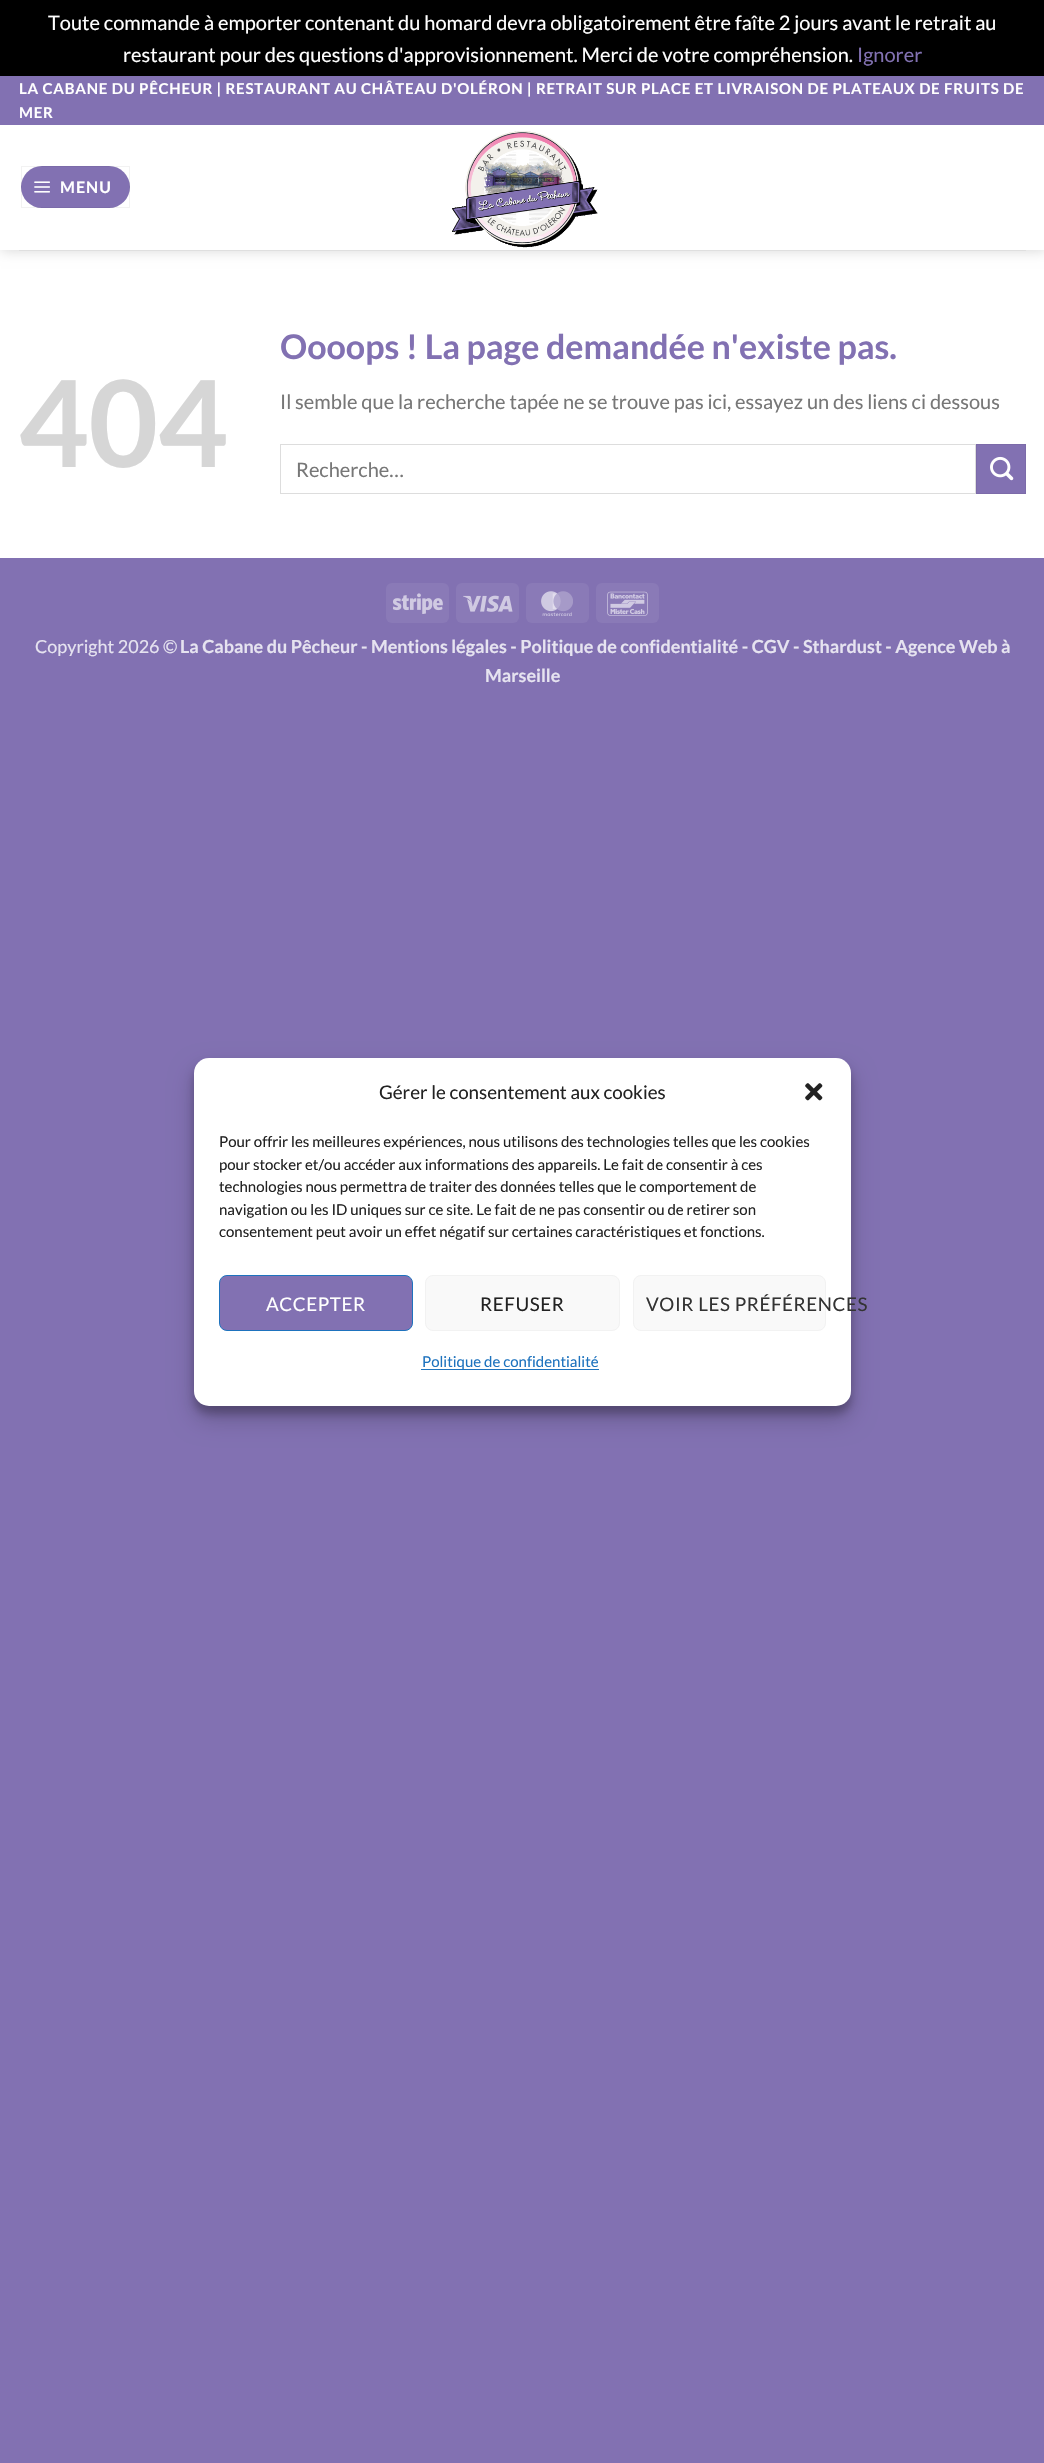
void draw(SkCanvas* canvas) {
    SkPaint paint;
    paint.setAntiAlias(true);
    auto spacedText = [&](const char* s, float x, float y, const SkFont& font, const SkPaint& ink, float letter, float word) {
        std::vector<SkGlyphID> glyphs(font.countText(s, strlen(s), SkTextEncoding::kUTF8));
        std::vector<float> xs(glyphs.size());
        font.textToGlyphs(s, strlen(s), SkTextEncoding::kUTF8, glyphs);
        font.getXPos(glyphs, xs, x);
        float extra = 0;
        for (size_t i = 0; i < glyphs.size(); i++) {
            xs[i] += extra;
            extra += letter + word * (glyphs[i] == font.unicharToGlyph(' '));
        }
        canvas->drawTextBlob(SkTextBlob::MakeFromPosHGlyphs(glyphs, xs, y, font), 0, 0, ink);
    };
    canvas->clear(0xFF8271B2);
    paint.setColor(0xFF000000);
    canvas->drawRect(SkRect::MakeXYWH(0, 0, 1044, 76), paint);
    SkFont font1(fontMgr->matchFamilyStyle("Lato", SkFontStyle::Normal()), 20);
    font1.setSubpixel(true);
    paint.setColor(0xFFFFFFFF);
    canvas->drawString("Toute commande à emporter contenant du homard devra obligatoirement être faîte 2 jours avant le retrait au", 48, 30, font1, paint);
    canvas->drawString("restaurant pour des questions d'approvisionnement. Merci de votre compréhension.", 123, 62, font1, paint);
    paint.setColor(0xFF8271B2);
    canvas->drawString("Ignorer", 857, 62, font1, paint);
    paint.setColor(0xFFFFFFFF);
    canvas->drawRect(SkRect::MakeXYWH(0, 125, 1044, 433), paint);
    canvas->save();
    canvas->clipPath(SkPathBuilder(SkPathFillType::kEvenOdd).moveTo(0, 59).lineTo(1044, 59).lineTo(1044, 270).lineTo(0, 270).close().moveTo(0, 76).lineTo(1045, 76).lineTo(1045, 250).lineTo(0, 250).close().detach(), true);
    paint.setColor(0x26000000);
    paint.setMaskFilter(SkMaskFilter::MakeBlur(kNormal_SkBlurStyle, 6));
    canvas->drawRect(SkRect::MakeXYWH(1, 78, 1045, 173), paint);
    paint.setMaskFilter(nullptr);
    canvas->restore();
    paint.setColor(0xFF8271B2);
    canvas->drawRect(SkRect::MakeXYWH(11, 76, 1025, 1), paint);
    SkFont font2(fontMgr->matchFamilyStyle("Lato", SkFontStyle::Bold()), 15);
    font2.setSubpixel(true);
    paint.setColor(0xFFFFFFFF);
    spacedText("LA CABANE DU PÊCHEUR | RESTAURANT AU CHÂTEAU D'OLÉRON | RETRAIT SUR PLACE ET LIVRAISON DE PLATEAUX DE FRUITS DE", 19, 94, font2, paint, 0.75f, 0);
    spacedText("MER", 19, 118, font2, paint, 0.75f, 0);
    paint.setColor(0xFF8271B2);
    canvas->drawRoundRect(SkRect::MakeXYWH(21, 166, 109, 42), 21, 21, paint);
    paint.setStyle(SkPaint::kStroke_Style);
    paint.setStrokeWidth(1);
    paint.setColor(0x0D000000);
    canvas->drawRect(SkRect::MakeXYWH(21.5f, 166.5f, 108, 41), paint);
    canvas->drawImageRect(SkImages::DeferredFromEncodedData(SkData::MakeFromFileName("img1.png")), SkRect::MakeXYWH(34, 181, 16, 12), SkSamplingOptions());
    SkFont font3(fontMgr->matchFamilyStyle("Lato", SkFontStyle::Bold()), 16);
    font3.setSubpixel(true);
    paint.setStyle(SkPaint::kFill_Style);
    paint.setColor(0xFFFFFFFF);
    spacedText("MENU", 60, 193, font3, paint, 1, 0);
    canvas->drawImageRect(SkImages::DeferredFromEncodedData(SkData::MakeFromFileName("img2.png")), SkRect::MakeXYWH(452, 131, 146, 117), SkSamplingOptions());
    paint.setColor(0xFFDFDFDF);
    canvas->drawRect(SkRect::MakeXYWH(19, 250, 1007, 1), paint);
    SkFont font4(fontMgr->matchFamilyStyle("Lato", SkFontStyle::Bold()), 120);
    font4.setSubpixel(true);
    paint.setColor(0xFFD6D6D6);
    canvas->drawString("404", 19, 467, font4, paint);
    SkFont font5(fontMgr->matchFamilyStyle("Lato", SkFontStyle::Bold()), 34);
    font5.setSubpixel(true);
    paint.setColor(0xFF8271B2);
    canvas->drawString("Oooops ! La page demandée n'existe pas.", 280, 359, font5, paint);
    paint.setColor(0xFF777777);
    canvas->drawString("Il semble que la recherche tapée ne se trouve pas ici, essayez un des liens ci dessous", 280, 409, font1, paint);
    paint.setStyle(SkPaint::kStroke_Style);
    paint.setColor(0xFFDDDDDD);
    canvas->drawRect(SkRect::MakeXYWH(280.5f, 444.5f, 695, 49), paint);
    paint.setStyle(SkPaint::kFill_Style);
    paint.setColor(0xFF777777);
    canvas->drawString("Recherche…", 296, 477, font1, paint);
    paint.setColor(0xFF8271B2);
    canvas->drawRect(SkRect::MakeXYWH(976.5f, 444.5f, 49, 49), paint);
    paint.setStyle(SkPaint::kStroke_Style);
    paint.setColor(0xFF7C6BA9);
    canvas->drawRect(SkRect::MakeXYWH(976.5f, 444.5f, 49, 49), paint);
    canvas->drawImageRect(SkImages::DeferredFromEncodedData(SkData::MakeFromFileName("img3.png")), SkRect::MakeXYWH(990, 456, 24, 25), SkSamplingOptions());
    paint.setStyle(SkPaint::kFill_Style);
    paint.setColor(0xFF8A7AB7);
    canvas->drawRoundRect(SkRect::MakeXYWH(386, 583, 63, 40), 6, 6, paint);
    canvas->drawImageRect(SkImages::DeferredFromEncodedData(SkData::MakeFromFileName("img4.png")), SkRect::MakeXYWH(393, 593, 50, 21), SkSamplingOptions());
    canvas->drawRoundRect(SkRect::MakeXYWH(456, 583, 63, 40), 6, 6, paint);
    canvas->drawImageRect(SkImages::DeferredFromEncodedData(SkData::MakeFromFileName("img5.png")), SkRect::MakeXYWH(463, 595, 50, 17), SkSamplingOptions());
    canvas->drawRoundRect(SkRect::MakeXYWH(526, 583, 63, 40), 6, 6, paint);
    canvas->drawImageRect(SkImages::DeferredFromEncodedData(SkData::MakeFromFileName("img6.png")), SkRect::MakeXYWH(541, 591, 32, 25), SkSamplingOptions());
    canvas->drawRoundRect(SkRect::MakeXYWH(596, 583, 63, 40), 6, 6, paint);
    canvas->drawImageRect(SkImages::DeferredFromEncodedData(SkData::MakeFromFileName("img7.png")), SkRect::MakeXYWH(607, 591, 41, 25), SkSamplingOptions());
    SkFont font6(fontMgr->matchFamilyStyle("Lato", SkFontStyle::Normal()), 18);
    font6.setSubpixel(true);
    paint.setColor(0xFFE6E3F0);
    canvas->drawString("Copyright 2026 ©", 35, 653, font6, paint);
    SkFont font7(fontMgr->matchFamilyStyle("Lato", SkFontStyle::Bold()), 18);
    font7.setSubpixel(true);
    canvas->drawString("La Cabane du Pêcheur - Mentions légales - Politique de confidentialité - CGV - Sthardust - Agence Web à", 180, 653, font7, paint);
    canvas->drawString("Marseille", 485, 682, font7, paint);
    paint.setColor(0x3B000000);
    paint.setMaskFilter(SkMaskFilter::MakeBlur(kNormal_SkBlurStyle, 4));
    canvas->drawRoundRect(SkRect::MakeXYWH(194, 1065, 657, 349), 15, 15, paint);
    paint.setMaskFilter(nullptr);
    paint.setColor(0x30000000);
    paint.setMaskFilter(SkMaskFilter::MakeBlur(kNormal_SkBlurStyle, 12.5f));
    canvas->drawRoundRect(SkRect::MakeXYWH(194, 1070, 657, 349), 15, 15, paint);
    paint.setMaskFilter(nullptr);
    paint.setColor(0xFFFFFFFF);
    canvas->drawRoundRect(SkRect::MakeXYWH(194, 1058, 657, 348), 15, 15, paint);
    SkFont font8(fontMgr->matchFamilyStyle("Lato", SkFontStyle::Normal()), 18.75f);
    font8.setSubpixel(true);
    paint.setColor(0xFF222222);
    canvas->drawString("Gérer le consentement aux cookies", 379, 1099, font8, paint);
    canvas->drawImageRect(SkImages::DeferredFromEncodedData(SkData::MakeFromFileName("img8.png")), SkRect::MakeXYWH(805, 1083, 18, 18), SkSamplingOptions());
    SkFont font9(fontMgr->matchFamilyStyle("Lato", SkFontStyle::Normal()), 15);
    font9.setSubpixel(true);
    canvas->drawString("Pour offrir les meilleures expériences, nous utilisons des technologies telles que les cookies", 219, 1147, font9, paint);
    canvas->drawString("pour stocker et/ou accéder aux informations des appareils. Le fait de consentir à ces", 219, 1170, font9, paint);
    canvas->drawString("technologies nous permettra de traiter des données telles que le comportement de", 219, 1192, font9, paint);
    canvas->drawString("navigation ou les ID uniques sur ce site. Le fait de ne pas consentir ou de retirer son", 219, 1215, font9, paint);
    canvas->drawString("consentement peut avoir un effet négatif sur certaines caractéristiques et fonctions.", 219, 1237, font9, paint);
    paint.setColor(0xFF8271B2);
    canvas->drawRoundRect(SkRect::MakeXYWH(219.5f, 1275.5f, 193, 55), 7.5f, 7.5f, paint);
    paint.setStyle(SkPaint::kStroke_Style);
    paint.setColor(0xFF1E73BE);
    canvas->drawRoundRect(SkRect::MakeXYWH(219.5f, 1275.5f, 193, 55), 7.5f, 7.5f, paint);
    paint.setStyle(SkPaint::kFill_Style);
    paint.setColor(0xFFFFFFFF);
    spacedText("ACCEPTER", 266, 1311, font8, paint, 0.6f, 0);
    paint.setColor(0xFFF9F9F9);
    canvas->drawRoundRect(SkRect::MakeXYWH(425.5f, 1275.5f, 194, 55), 7.5f, 7.5f, paint);
    paint.setStyle(SkPaint::kStroke_Style);
    paint.setColor(0xFFF2F2F2);
    canvas->drawRoundRect(SkRect::MakeXYWH(425.5f, 1275.5f, 194, 55), 7.5f, 7.5f, paint);
    paint.setStyle(SkPaint::kFill_Style);
    paint.setColor(0xFF222222);
    spacedText("REFUSER", 480, 1311, font8, paint, 0.6f, 0);
    paint.setColor(0xFFF9F9F9);
    canvas->drawRoundRect(SkRect::MakeXYWH(633.5f, 1275.5f, 192, 55), 7.5f, 7.5f, paint);
    paint.setStyle(SkPaint::kStroke_Style);
    paint.setColor(0xFFF2F2F2);
    canvas->drawRoundRect(SkRect::MakeXYWH(633.5f, 1275.5f, 192, 55), 7.5f, 7.5f, paint);
    paint.setStyle(SkPaint::kFill_Style);
    paint.setColor(0xFF333333);
    spacedText("VOIR LES PRÉFÉRENCES", 646, 1311, font8, paint, 0.6f, 0);
    paint.setColor(0xFF1E73BE);
    canvas->drawRect(SkRect::MakeXYWH(421, 1369, 178, 1), paint);
    canvas->drawString("Politique de confidentialité", 422, 1367, font9, paint);
}
